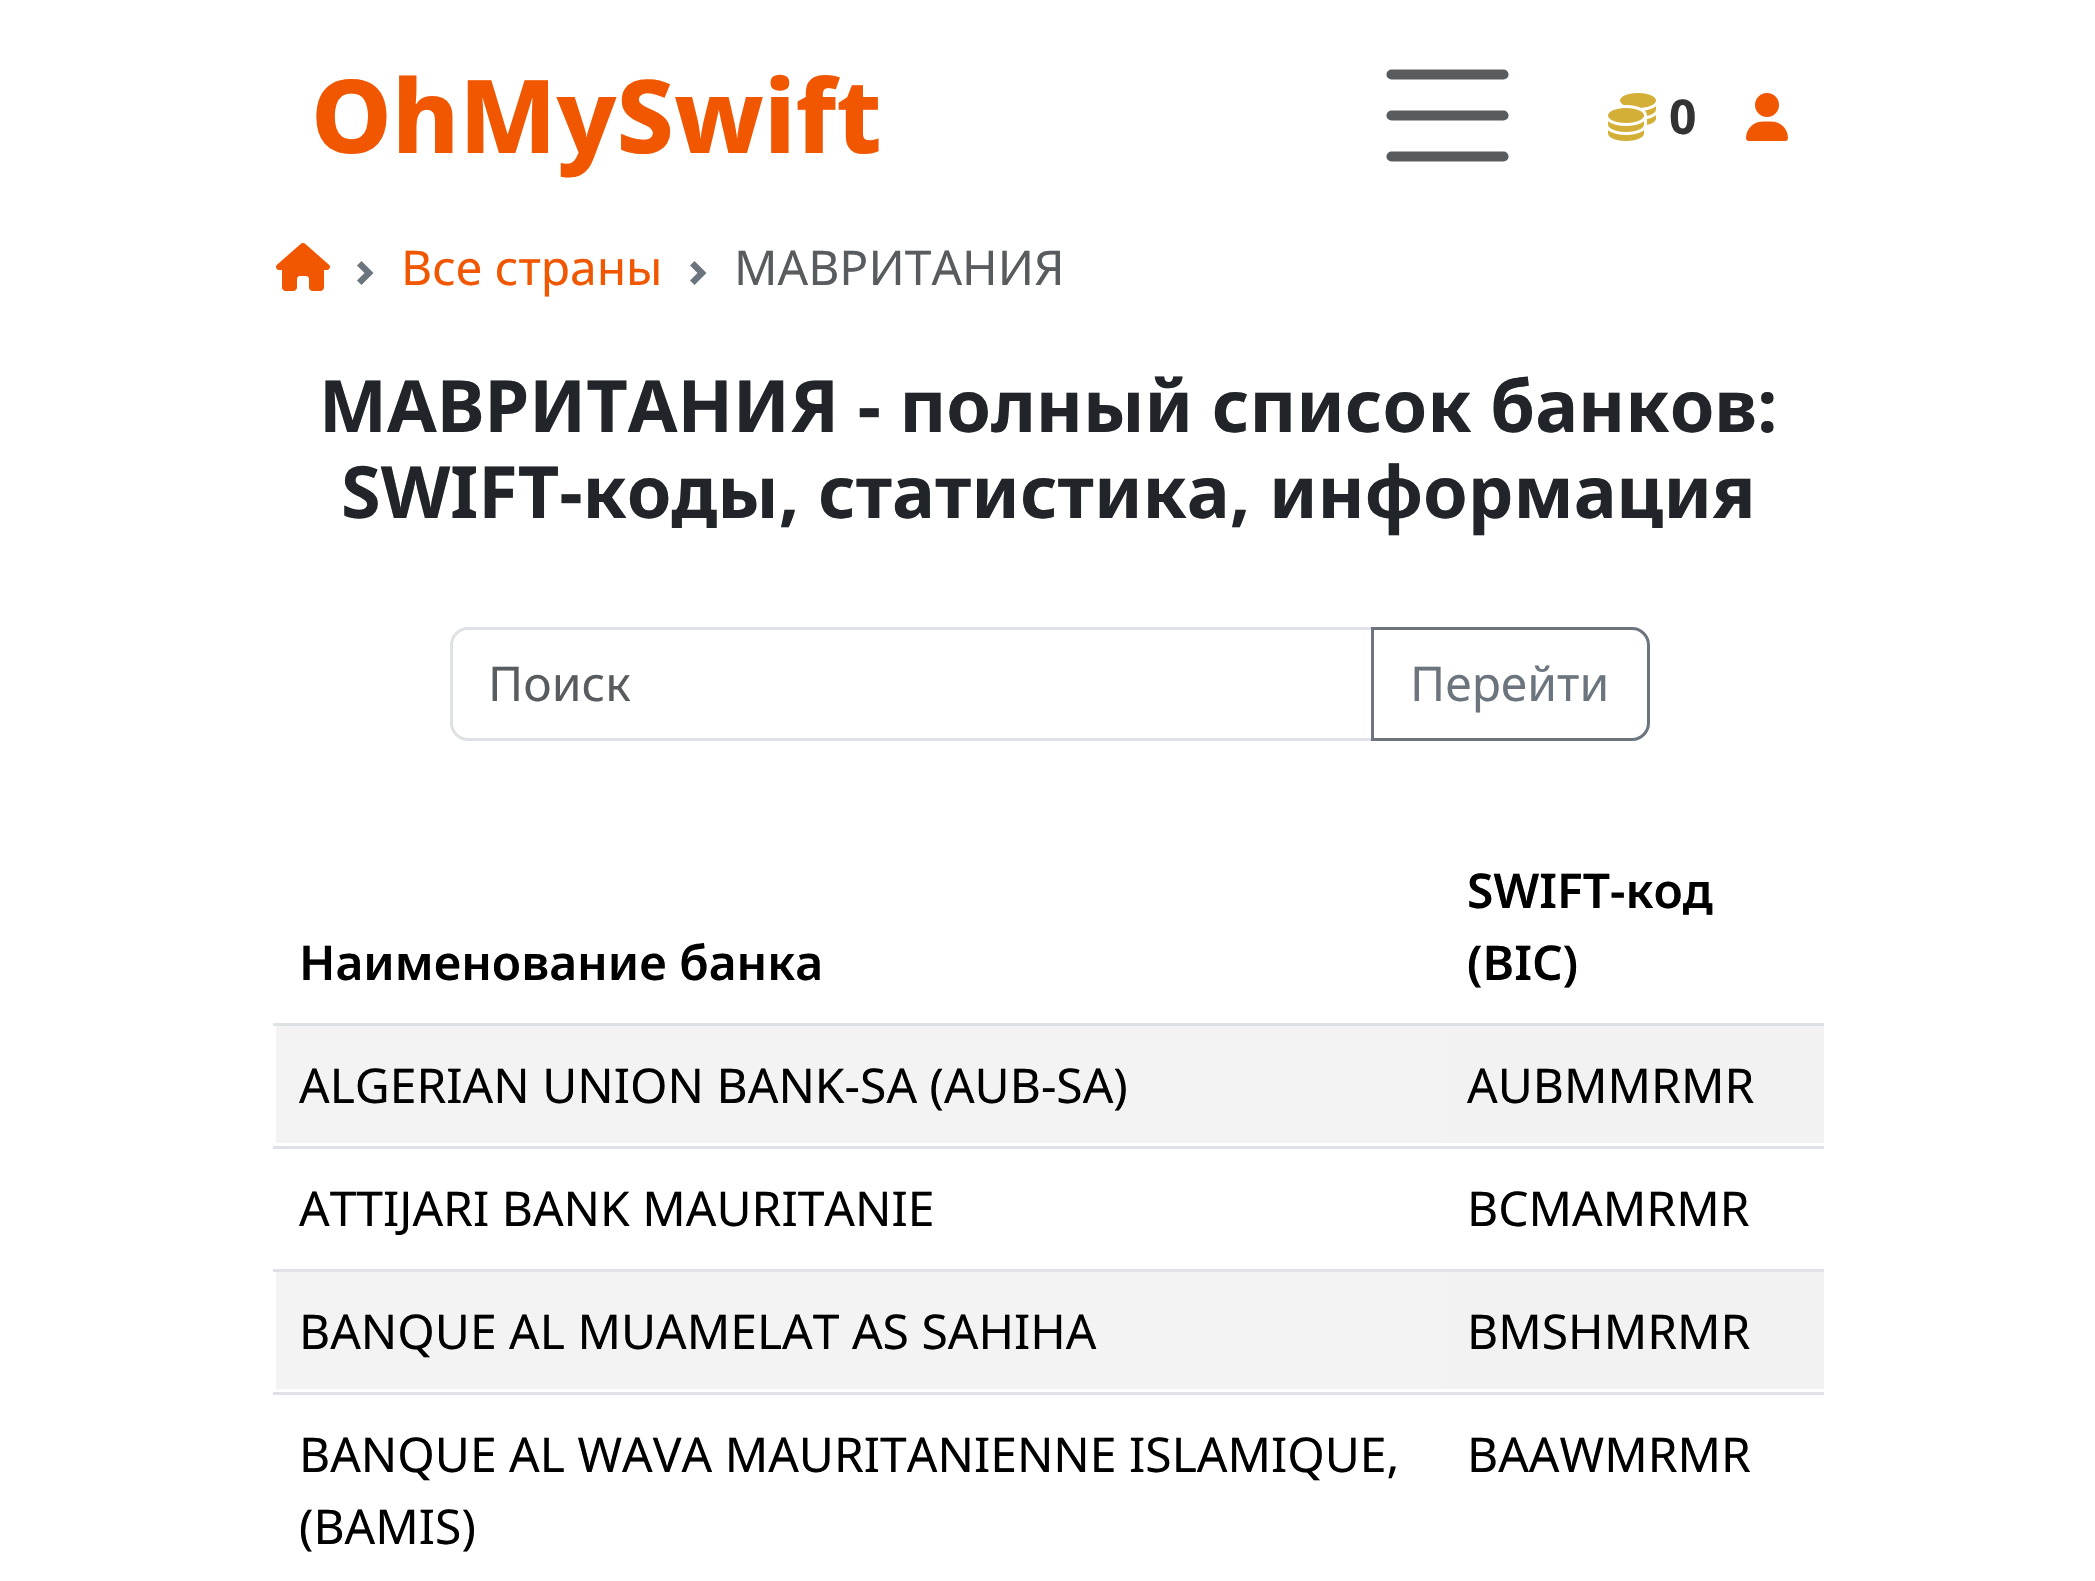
void draw(SkCanvas* canvas) {
    SkPaint paint;
    paint.setAntiAlias(true);
    canvas->clear(0xFFFFFFFF);
    SkFont font1(fontMgr->matchFamilyStyle("Noto Sans", SkFontStyle(800, SkFontStyle::kNormal_Width, SkFontStyle::kUpright_Slant)), 102);
    font1.setSubpixel(true);
    paint.setColor(0xFFF15600);
    canvas->drawString("OhMySwift", 311, 153, font1, paint);
    paint.setStyle(SkPaint::kStroke_Style);
    paint.setStrokeWidth(10.2f);
    paint.setStrokeCap(SkPaint::kRound_Cap);
    paint.setColor(0xFF595C5F);
    canvas->drawPath(SkPathBuilder().moveTo(1391.5f, 74.5f).lineTo(1503.5f, 74.5f).moveTo(1391.5f, 115.5f).lineTo(1503.5f, 115.5f).moveTo(1391.5f, 156.5f).lineTo(1503.5f, 156.5f).detach(), paint);
    canvas->drawImageRect(SkImages::DeferredFromEncodedData(SkData::MakeFromFileName("img1.png")), SkRect::MakeXYWH(1608, 93, 48, 48), SkSamplingOptions());
    SkFont font2(fontMgr->matchFamilyStyle("Noto Sans", SkFontStyle::Bold()), 48);
    font2.setSubpixel(true);
    paint.setStyle(SkPaint::kFill_Style);
    paint.setColor(0xFF333333);
    canvas->drawString("0", 1669, 134, font2, paint);
    canvas->drawImageRect(SkImages::DeferredFromEncodedData(SkData::MakeFromFileName("img2.png")), SkRect::MakeXYWH(1746, 93, 42, 48), SkSamplingOptions());
    canvas->drawImageRect(SkImages::DeferredFromEncodedData(SkData::MakeFromFileName("img3.png")), SkRect::MakeXYWH(276, 243, 54, 48), SkSamplingOptions());
    canvas->drawImageRect(SkImages::DeferredFromEncodedData(SkData::MakeFromFileName("img4.png")), SkRect::MakeXYWH(357, 261, 17, 24), SkSamplingOptions());
    SkFont font3(fontMgr->matchFamilyStyle("Noto Sans", SkFontStyle::Normal()), 48);
    font3.setSubpixel(true);
    paint.setColor(0xFFF15600);
    canvas->drawString("Все страны", 401, 285, font3, paint);
    canvas->drawImageRect(SkImages::DeferredFromEncodedData(SkData::MakeFromFileName("img4.png")), SkRect::MakeXYWH(690, 261, 17, 24), SkSamplingOptions());
    paint.setColor(0xFF595C5F);
    canvas->drawString("МАВРИТАНИЯ", 734, 285, font3, paint);
    SkFont font4(fontMgr->matchFamilyStyle("Noto Sans", SkFontStyle::Bold()), 72);
    font4.setSubpixel(true);
    paint.setColor(0xFF212529);
    canvas->drawString("МАВРИТАНИЯ - полный список банков:", 319, 432, font4, paint);
    canvas->drawString("SWIFT-коды, статистика, информация", 341, 518, font4, paint);
    paint.setStyle(SkPaint::kStroke_Style);
    paint.setStrokeWidth(3);
    paint.setStrokeCap(SkPaint::kButt_Cap);
    paint.setColor(0xFFDEE2E6);
    canvas->drawPath(SkPathBuilder().moveTo(468, 628.5f).lineTo(1372.5f, 628.5f).lineTo(1372.5f, 739.5f).lineTo(468, 739.5f).cubicTo(459, 739.5f, 451.5f, 732, 451.5f, 723).lineTo(451.5f, 645).cubicTo(451.5f, 636, 459, 628.5f, 468, 628.5f).close().detach(), paint);
    paint.setStyle(SkPaint::kFill_Style);
    paint.setColor(0xFF595C5F);
    canvas->drawString("Поиск", 488, 701, font3, paint);
    paint.setStyle(SkPaint::kStroke_Style);
    paint.setColor(0xFF6C757D);
    canvas->drawPath(SkPathBuilder().moveTo(1372.5f, 628.5f).lineTo(1632, 628.5f).cubicTo(1641, 628.5f, 1648.5f, 636, 1648.5f, 645).lineTo(1648.5f, 723).cubicTo(1648.5f, 732, 1641, 739.5f, 1632, 739.5f).lineTo(1372.5f, 739.5f).close().detach(), paint);
    paint.setStyle(SkPaint::kFill_Style);
    canvas->drawString("Перейти", 1410, 701, font3, paint);
    SkFont font5(fontMgr->matchFamilyStyle("Noto Sans", SkFontStyle(600, SkFontStyle::kNormal_Width, SkFontStyle::kUpright_Slant)), 48);
    font5.setSubpixel(true);
    paint.setColor(0xFF000000);
    canvas->drawString("Наименование банка", 299, 980, font5, paint);
    paint.setColor(0xFFDEE2E6);
    canvas->drawRect(SkRect::MakeXYWH(273, 1023, 1551, 3), paint);
    paint.setColor(0xFF000000);
    canvas->drawString("SWIFT-код", 1467, 908, font5, paint);
    canvas->drawString("(BIC)", 1467, 980, font5, paint);
    paint.setColor(0xFFF3F3F3);
    canvas->drawRect(SkRect::MakeXYWH(276, 1026, 1167, 117), paint);
    paint.setColor(0xFF000000);
    canvas->drawString("ALGERIAN UNION BANK-SA (AUB-SA)", 299, 1103, font3, paint);
    paint.setColor(0xFFF2F2F2);
    canvas->drawRect(SkRect::MakeXYWH(1443, 1026, 381, 117), paint);
    paint.setColor(0xFFDEE2E6);
    canvas->drawRect(SkRect::MakeXYWH(273, 1146, 1551, 3), paint);
    paint.setColor(0xFF000000);
    canvas->drawString("AUBMMRMR", 1467, 1103, font3, paint);
    canvas->drawString("ATTIJARI BANK MAURITANIE", 299, 1226, font3, paint);
    paint.setColor(0xFFDEE2E6);
    canvas->drawRect(SkRect::MakeXYWH(273, 1269, 1551, 3), paint);
    paint.setColor(0xFF000000);
    canvas->drawString("BCMAMRMR", 1467, 1226, font3, paint);
    paint.setColor(0xFFF3F3F3);
    canvas->drawRect(SkRect::MakeXYWH(276, 1272, 1167, 117), paint);
    paint.setColor(0xFF000000);
    canvas->drawString("BANQUE AL MUAMELAT AS SAHIHA", 299, 1349, font3, paint);
    paint.setColor(0xFFF2F2F2);
    canvas->drawRect(SkRect::MakeXYWH(1443, 1272, 381, 117), paint);
    paint.setColor(0xFFDEE2E6);
    canvas->drawRect(SkRect::MakeXYWH(273, 1392, 1551, 3), paint);
    paint.setColor(0xFF000000);
    canvas->drawString("BMSHMRMR", 1467, 1349, font3, paint);
    canvas->drawString("BANQUE AL WAVA MAURITANIENNE ISLAMIQUE,", 299, 1472, font3, paint);
    canvas->drawString("(BAMIS)", 299, 1544, font3, paint);
    canvas->drawString("BAAWMRMR", 1467, 1472, font3, paint);
}
